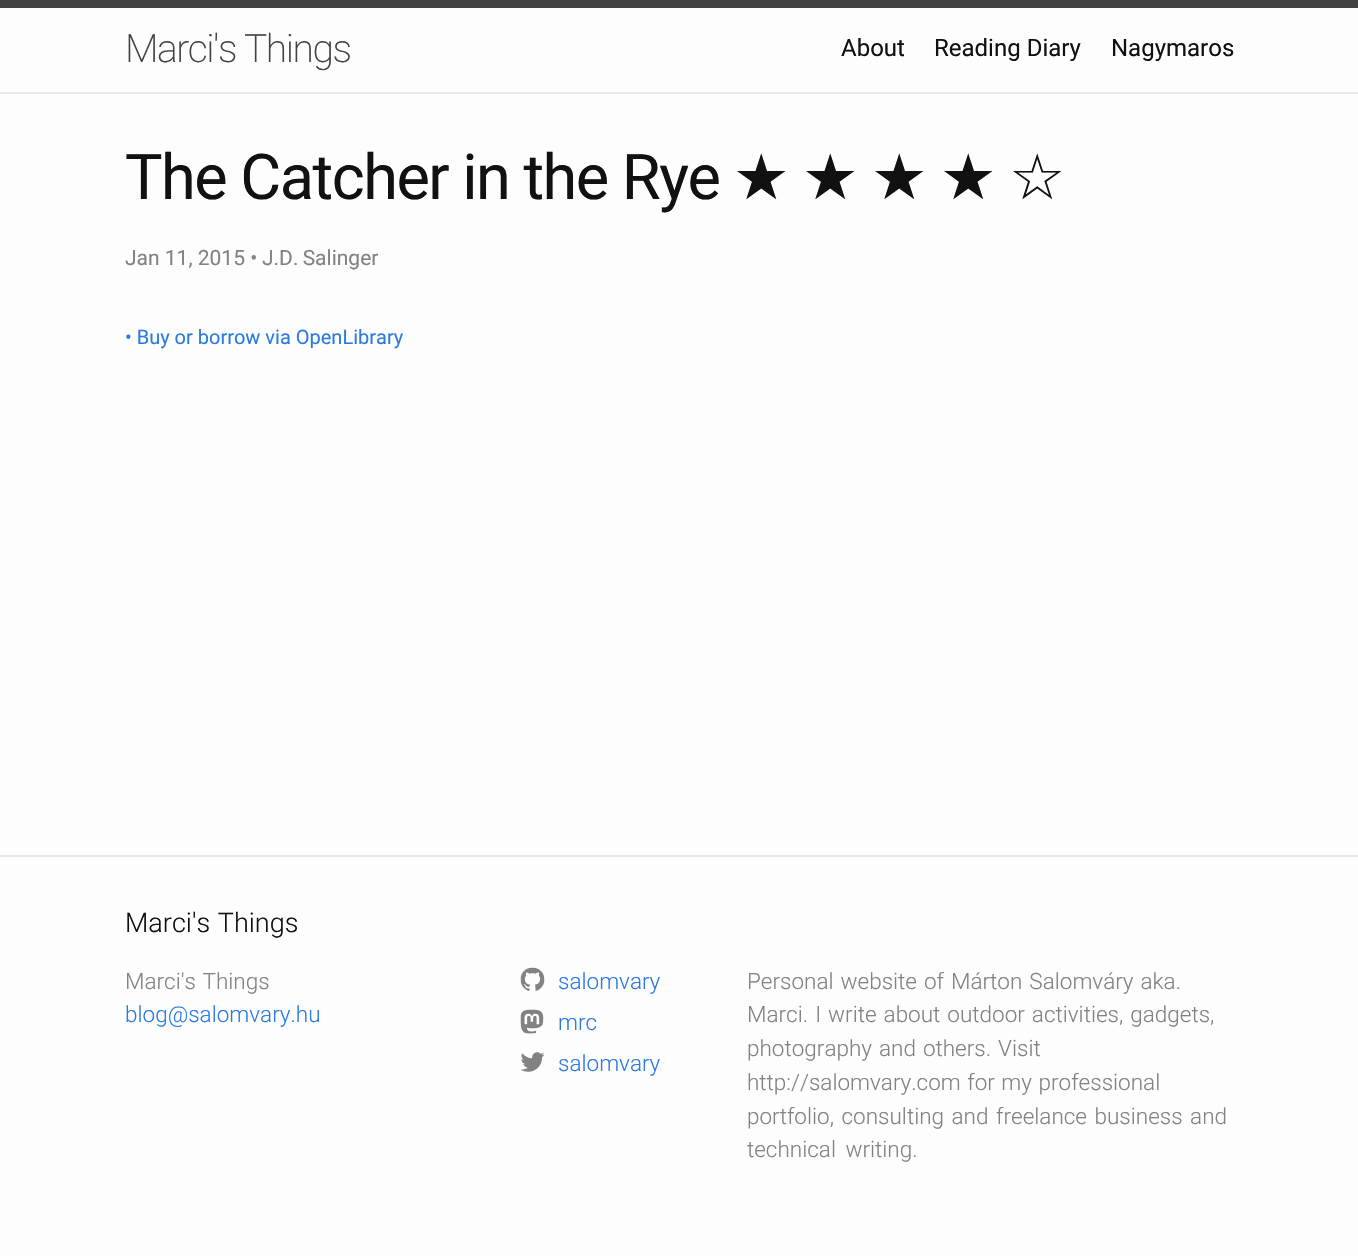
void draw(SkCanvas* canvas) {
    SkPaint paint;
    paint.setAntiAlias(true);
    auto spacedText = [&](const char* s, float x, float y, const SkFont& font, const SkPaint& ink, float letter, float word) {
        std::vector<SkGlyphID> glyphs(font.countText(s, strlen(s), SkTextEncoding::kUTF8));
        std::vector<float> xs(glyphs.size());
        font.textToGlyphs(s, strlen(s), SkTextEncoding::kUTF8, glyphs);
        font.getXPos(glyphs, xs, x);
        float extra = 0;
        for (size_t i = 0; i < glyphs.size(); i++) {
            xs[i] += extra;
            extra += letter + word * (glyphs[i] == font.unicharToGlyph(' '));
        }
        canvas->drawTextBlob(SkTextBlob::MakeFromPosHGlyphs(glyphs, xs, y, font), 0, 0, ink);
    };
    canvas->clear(0xFFFDFDFD);
    paint.setColor(0xFF424242);
    canvas->drawRect(SkRect::MakeXYWH(0, 0, 1358, 8), paint);
    paint.setColor(0xFFE8E8E8);
    canvas->drawRect(SkRect::MakeXYWH(0, 92, 1358, 2), paint);
    SkFont font1(fontMgr->matchFamilyStyle("Roboto", SkFontStyle(200, SkFontStyle::kNormal_Width, SkFontStyle::kUpright_Slant)), 39);
    font1.setSubpixel(true);
    paint.setColor(0xFF424242);
    spacedText("Marci's Things", 125, 62, font1, paint, -1.5f, 0);
    SkFont font2(fontMgr->matchFamilyStyle("Roboto", SkFontStyle::Normal()), 24);
    font2.setSubpixel(true);
    paint.setColor(0xFF111111);
    canvas->drawString("About", 841, 56, font2, paint);
    canvas->drawString("Reading Diary", 934, 56, font2, paint);
    canvas->drawString("Nagymaros", 1111, 56, font2, paint);
    SkFont font3(fontMgr->matchFamilyStyle("Roboto", SkFontStyle::Normal()), 63);
    font3.setSubpixel(true);
    spacedText("The Catcher in the Rye", 125, 199, font3, paint, -1.5f, 0);
    SkFont font4(fontMgr->matchFamilyStyle("DejaVu Sans", SkFontStyle::Normal()), 63);
    font4.setSubpixel(true);
    spacedText("★", 733, 199, font4, paint, -1.5f, 0);
    spacedText("★", 802, 199, font4, paint, -1.5f, 0);
    spacedText("★", 871, 199, font4, paint, -1.5f, 0);
    spacedText("★", 940, 199, font4, paint, -1.5f, 0);
    spacedText("☆", 1009, 199, font4, paint, -1.5f, 0);
    SkFont font5(fontMgr->matchFamilyStyle("Roboto", SkFontStyle::Normal()), 21);
    font5.setSubpixel(true);
    paint.setColor(0xFF828282);
    canvas->drawString("Jan 11, 2015 •", 125, 265, font5, paint);
    spacedText("J.D. Salinger", 262, 265, font5, paint, 0, -1);
    SkFont font6(fontMgr->matchFamilyStyle("Roboto", SkFontStyle::Normal()), 20);
    font6.setSubpixel(true);
    paint.setColor(0xFF2A7AE2);
    canvas->drawString("• Buy or borrow via OpenLibrary", 125, 344, font6, paint);
    paint.setColor(0xFFE8E8E8);
    canvas->drawRect(SkRect::MakeXYWH(0, 855, 1358, 2), paint);
    SkFont font7(fontMgr->matchFamilyStyle("Roboto", SkFontStyle(300, SkFontStyle::kNormal_Width, SkFontStyle::kUpright_Slant)), 27);
    font7.setSubpixel(true);
    paint.setColor(0xFF111111);
    spacedText("Marci's Things", 125, 932, font7, paint, 0, 1);
    SkFont font8(fontMgr->matchFamilyStyle("Roboto", SkFontStyle(300, SkFontStyle::kNormal_Width, SkFontStyle::kUpright_Slant)), 22.5f);
    font8.setSubpixel(true);
    paint.setColor(0xFF828282);
    spacedText("Marci's Things", 125, 989, font8, paint, 0, 1);
    paint.setColor(0xFF2A7AE2);
    canvas->drawString("blog@salomvary.hu", 125, 1022, font8, paint);
    canvas->drawImageRect(SkImages::DeferredFromEncodedData(SkData::MakeFromFileName("img1.png")), SkRect::MakeXYWH(520, 967, 25, 24), SkSamplingOptions());
    canvas->drawString("salomvary", 558, 989, font8, paint);
    canvas->drawImageRect(SkImages::DeferredFromEncodedData(SkData::MakeFromFileName("img2.png")), SkRect::MakeXYWH(520, 1009, 24, 25), SkSamplingOptions());
    canvas->drawString("mrc", 558, 1030, font8, paint);
    canvas->drawImageRect(SkImages::DeferredFromEncodedData(SkData::MakeFromFileName("img3.png")), SkRect::MakeXYWH(521, 1052, 24, 20), SkSamplingOptions());
    canvas->drawString("salomvary", 558, 1071, font8, paint);
    paint.setColor(0xFF828282);
    spacedText("Personal website of Márton Salomváry aka.", 747, 989, font8, paint, 0, 1.5f);
    spacedText("Marci. I write about outdoor activities, gadgets,", 747, 1022, font8, paint, 0, 1.5f);
    spacedText("photography and others. Visit", 747, 1056, font8, paint, 0, 1.5f);
    spacedText("http://salomvary.com for my professional", 747, 1090, font8, paint, 0, 1);
    spacedText("portfolio, consulting and freelance business and", 747, 1124, font8, paint, 0, 2);
    spacedText("technical writing.", 747, 1157, font8, paint, 0, 4);
}
